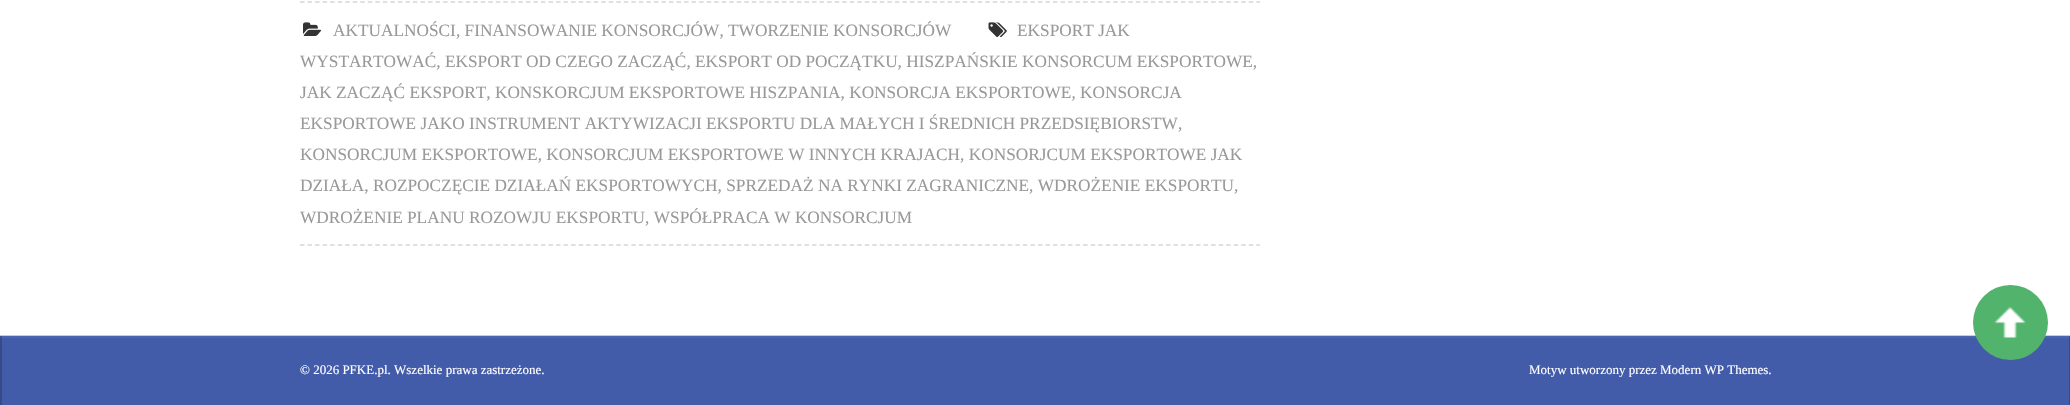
void draw(SkCanvas* canvas) {
    SkPaint paint;
    paint.setAntiAlias(true);
    canvas->clear(0xFFFFFFFF);
    paint.setStyle(SkPaint::kStroke_Style);
    paint.setStrokeWidth(1.5f);
    paint.setColor(0xFFD6D6D6);
    paint.setPathEffect(SkDashPathEffect::Make({{4.5f, 3.03f}}, 0));
    canvas->drawPath(SkPathBuilder().moveTo(300, 2).lineTo(1260, 2).detach(), paint);
    paint.setPathEffect(nullptr);
    paint.setPathEffect(SkDashPathEffect::Make({{4.5f, 3.03f}}, 0));
    canvas->drawPath(SkPathBuilder().moveTo(300, 245).lineTo(1260, 245).detach(), paint);
    paint.setPathEffect(nullptr);
    canvas->drawImageRect(SkImages::DeferredFromEncodedData(SkData::MakeFromFileName("img1.png")), SkRect::MakeXYWH(303, 22, 19, 14), SkSamplingOptions());
    SkFont font1(fontMgr->matchFamilyStyle("Liberation Serif", SkFontStyle::Normal()), 17.28f);
    font1.setSubpixel(true);
    paint.setStyle(SkPaint::kFill_Style);
    paint.setColor(0xFF999999);
    canvas->drawString("AKTUALNOŚCI, FINANSOWANIE KONSORCJÓW, TWORZENIE KONSORCJÓW", 333, 36, font1, paint);
    canvas->drawImageRect(SkImages::DeferredFromEncodedData(SkData::MakeFromFileName("img2.png")), SkRect::MakeXYWH(988, 22, 19, 15), SkSamplingOptions());
    canvas->drawString("EKSPORT JAK", 1017, 36, font1, paint);
    canvas->drawString("WYSTARTOWAĆ, EKSPORT OD CZEGO ZACZĄĆ, EKSPORT OD POCZĄTKU, HISZPAŃSKIE KONSORCUM EKSPORTOWE,", 300, 67, font1, paint);
    canvas->drawString("JAK ZACZĄĆ EKSPORT, KONSKORCJUM EKSPORTOWE HISZPANIA, KONSORCJA EKSPORTOWE, KONSORCJA", 300, 98, font1, paint);
    canvas->drawString("EKSPORTOWE JAKO INSTRUMENT AKTYWIZACJI EKSPORTU DLA MAŁYCH I ŚREDNICH PRZEDSIĘBIORSTW", 300, 129, font1, paint);
    canvas->drawString(",", 1178, 129, font1, paint);
    canvas->drawString("KONSORCJUM EKSPORTOWE, KONSORCJUM EKSPORTOWE W INNYCH KRAJACH, KONSORJCUM EKSPORTOWE JAK", 300, 160, font1, paint);
    canvas->drawString("DZIAŁA, ROZPOCZĘCIE DZIAŁAŃ EKSPORTOWYCH, SPRZEDAŻ NA RYNKI ZAGRANICZNE, WDROŻENIE EKSPORTU,", 300, 191, font1, paint);
    canvas->drawString("WDROŻENIE PLANU ROZOWJU EKSPORTU, WSPÓŁPRACA W KONSORCJUM", 300, 223, font1, paint);
    paint.setColor(0xFFCCCCCC);
    canvas->drawRect(SkRect::MakeXYWH(0, 335, 2070, 1), paint);
    paint.setColor(0xFF435CAA);
    canvas->drawRect(SkRect::MakeXYWH(2, 338, 2067, 67), paint);
    paint.setColor(0xFF4C64AE);
    canvas->drawRect(SkRect::MakeXYWH(0, 336, 2070, 2), paint);
    paint.setColor(0xFF52B36C);
    canvas->drawCircle(2010.5f, 322.5f, 37.5f, paint);
    canvas->drawImageRect(SkImages::DeferredFromEncodedData(SkData::MakeFromFileName("img3.png")), SkRect::MakeXYWH(1994, 307, 32, 31), SkSamplingOptions());
    paint.setColor(0xFF364A88);
    canvas->drawRect(SkRect::MakeXYWH(2069, 336, 1, 69), paint);
    paint.setColor(0xFF40538E);
    canvas->drawRect(SkRect::MakeXYWH(2069, 336, 1, 2), paint);
    paint.setColor(0xFF364A88);
    canvas->drawRect(SkRect::MakeXYWH(0, 336, 2, 69), paint);
    paint.setColor(0xFF40538E);
    canvas->drawRect(SkRect::MakeXYWH(0, 336, 2, 2), paint);
    SkFont font2(fontMgr->matchFamilyStyle("Liberation Serif", SkFontStyle::Normal()), 13);
    font2.setSubpixel(true);
    paint.setColor(0xFFFFFFFF);
    canvas->drawString("© 2026 PFKE.pl. Wszelkie prawa zastrzeżone.", 300, 374, font2, paint);
    canvas->drawString("Motyw utworzony przez Modern WP Themes.", 1529, 374, font2, paint);
}
